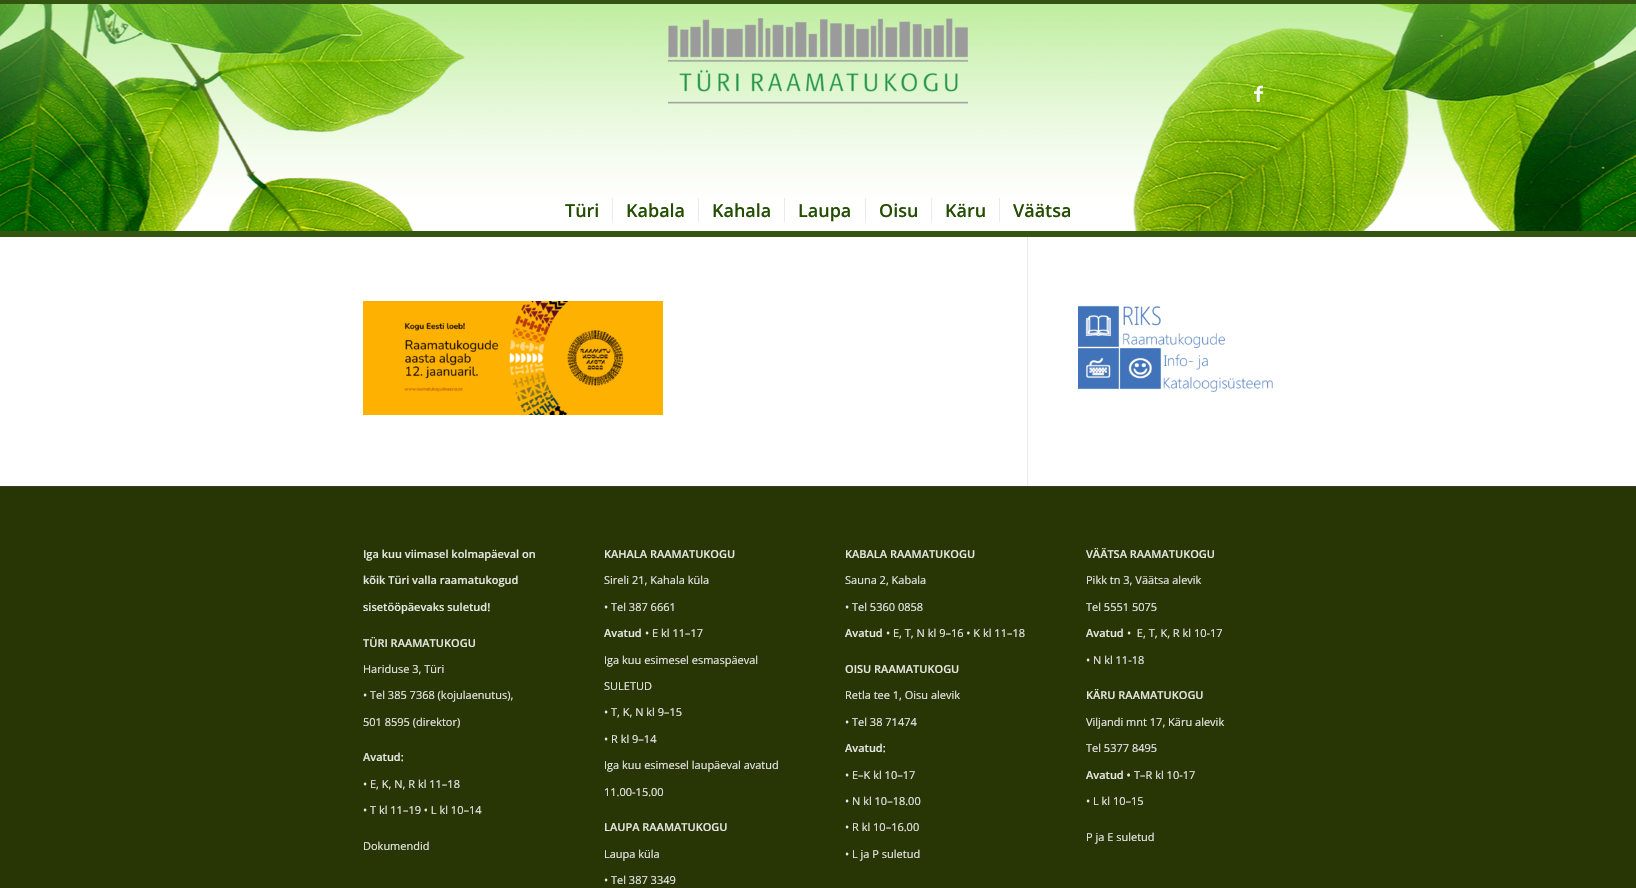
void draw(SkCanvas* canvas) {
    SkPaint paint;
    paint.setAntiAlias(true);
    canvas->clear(0xFF345411);
    canvas->drawImageRect(SkImages::DeferredFromEncodedData(SkData::MakeFromFileName("img1.png")), SkRect::MakeXYWH(0, 4, 1636, 227), SkSamplingOptions());
    canvas->drawImageRect(SkImages::DeferredFromEncodedData(SkData::MakeFromFileName("img2.png")), SkRect::MakeXYWH(668, 18, 300, 86), SkSamplingOptions());
    canvas->drawImageRect(SkImages::DeferredFromEncodedData(SkData::MakeFromFileName("img3.png")), SkRect::MakeXYWH(1254, 85, 9, 17), SkSamplingOptions());
    SkFont font1(fontMgr->matchFamilyStyle("Open Sans", SkFontStyle(600, SkFontStyle::kNormal_Width, SkFontStyle::kUpright_Slant)), 18);
    font1.setSubpixel(true);
    paint.setColor(0xFF234D00);
    canvas->drawString("Türi", 565, 217, font1, paint);
    canvas->drawString("Kabala", 626, 217, font1, paint);
    paint.setColor(0xFFEBEBEB);
    canvas->drawRect(SkRect::MakeXYWH(612, 198, 1, 24), paint);
    paint.setColor(0xFF234D00);
    canvas->drawString("Kahala", 712, 217, font1, paint);
    paint.setColor(0xFFEBEBEB);
    canvas->drawRect(SkRect::MakeXYWH(698, 198, 1, 24), paint);
    paint.setColor(0xFF234D00);
    canvas->drawString("Laupa", 798, 217, font1, paint);
    paint.setColor(0xFFEBEBEB);
    canvas->drawRect(SkRect::MakeXYWH(784, 198, 1, 24), paint);
    paint.setColor(0xFF234D00);
    canvas->drawString("Oisu", 879, 217, font1, paint);
    paint.setColor(0xFFEBEBEB);
    canvas->drawRect(SkRect::MakeXYWH(865, 198, 1, 24), paint);
    paint.setColor(0xFF234D00);
    canvas->drawString("Käru", 945, 217, font1, paint);
    paint.setColor(0xFFEBEBEB);
    canvas->drawRect(SkRect::MakeXYWH(931, 198, 1, 24), paint);
    paint.setColor(0xFF234D00);
    canvas->drawString("Väätsa", 1013, 217, font1, paint);
    paint.setColor(0xFFEBEBEB);
    canvas->drawRect(SkRect::MakeXYWH(999, 198, 1, 24), paint);
    paint.setColor(0xFFFFFFFF);
    canvas->drawRect(SkRect::MakeXYWH(0, 237, 1636, 249), paint);
    paint.setColor(0xFFEBEBEB);
    canvas->drawRect(SkRect::MakeXYWH(1027, 237, 1, 249), paint);
    canvas->drawImageRect(SkImages::DeferredFromEncodedData(SkData::MakeFromFileName("img4.png")), SkRect::MakeXYWH(363, 301, 300, 114), SkSamplingOptions());
    canvas->drawImageRect(SkImages::DeferredFromEncodedData(SkData::MakeFromFileName("img5.png")), SkRect::MakeXYWH(1078, 305, 195, 87), SkSamplingOptions());
    paint.setColor(0xFF283606);
    canvas->drawRect(SkRect::MakeXYWH(0, 487, 1636, 401), paint);
    paint.setColor(0xFF35383C);
    canvas->drawRect(SkRect::MakeXYWH(0, 486, 1636, 1), paint);
    SkFont font2(fontMgr->matchFamilyStyle("Open Sans", SkFontStyle(600, SkFontStyle::kNormal_Width, SkFontStyle::kUpright_Slant)), 11);
    font2.setSubpixel(true);
    paint.setColor(0xFFE5E8E1);
    canvas->drawString("Iga kuu viimasel kolmapäeval on", 363, 558, font2, paint);
    canvas->drawString("kõik Türi valla raamatukogud", 363, 584, font2, paint);
    canvas->drawString("sisetööpäevaks suletud!", 363, 611, font2, paint);
    canvas->drawString("TÜRI RAAMATUKOGU", 363, 647, font2, paint);
    SkFont font3(fontMgr->matchFamilyStyle("Open Sans", SkFontStyle::Normal()), 11);
    font3.setSubpixel(true);
    paint.setColor(0xFFE8E8E8);
    canvas->drawString("Hariduse 3, Türi", 363, 673, font3, paint);
    canvas->drawString("• Tel 385 7368 (kojulaenutus),", 363, 699, font3, paint);
    canvas->drawString("501 8595 (direktor)", 363, 726, font3, paint);
    paint.setColor(0xFFE5E8E1);
    canvas->drawString("Avatud:", 363, 761, font2, paint);
    paint.setColor(0xFFE8E8E8);
    canvas->drawString("• E, K, N, R kl 11–18", 363, 788, font3, paint);
    canvas->drawString("• T kl 11–19 • L kl 10–14", 363, 814, font3, paint);
    paint.setColor(0xFFE5E8E1);
    canvas->drawString("Dokumendid", 363, 850, font3, paint);
    canvas->drawString("KAHALA RAAMATUKOGU", 604, 558, font2, paint);
    paint.setColor(0xFFE8E8E8);
    canvas->drawString("Sireli 21, Kahala küla", 604, 584, font3, paint);
    canvas->drawString("• Tel 387 6661", 604, 611, font3, paint);
    paint.setColor(0xFFE5E8E1);
    canvas->drawString("Avatud", 604, 637, font2, paint);
    paint.setColor(0xFFE8E8E8);
    canvas->drawString("• E kl 11–17", 645, 637, font3, paint);
    canvas->drawString("Iga kuu esimesel esmaspäeval", 604, 664, font3, paint);
    canvas->drawString("SULETUD", 604, 690, font3, paint);
    canvas->drawString("• T, K, N kl 9–15", 604, 716, font3, paint);
    canvas->drawString("• R kl 9–14", 604, 743, font3, paint);
    canvas->drawString("Iga kuu esimesel laupäeval avatud", 604, 769, font3, paint);
    canvas->drawString("11.00-15.00", 604, 796, font3, paint);
    paint.setColor(0xFFE5E8E1);
    canvas->drawString("LAUPA RAAMATUKOGU", 604, 831, font2, paint);
    paint.setColor(0xFFE8E8E8);
    canvas->drawString("Laupa küla", 604, 858, font3, paint);
    canvas->drawString("• Tel 387 3349", 604, 884, font3, paint);
    paint.setColor(0xFFE5E8E1);
    canvas->drawString("KABALA RAAMATUKOGU", 845, 558, font2, paint);
    paint.setColor(0xFFE8E8E8);
    canvas->drawString("Sauna 2, Kabala", 845, 584, font3, paint);
    canvas->drawString("• Tel 5360 0858", 845, 611, font3, paint);
    paint.setColor(0xFFE5E8E1);
    canvas->drawString("Avatud", 845, 637, font2, paint);
    paint.setColor(0xFFE8E8E8);
    canvas->drawString("• E, T, N kl 9–16 • K kl 11–18", 886, 637, font3, paint);
    paint.setColor(0xFFE5E8E1);
    canvas->drawString("OISU RAAMATUKOGU", 845, 673, font2, paint);
    paint.setColor(0xFFE8E8E8);
    canvas->drawString("Retla tee 1, Oisu alevik", 845, 699, font3, paint);
    canvas->drawString("• Tel 38 71474", 845, 726, font3, paint);
    paint.setColor(0xFFE5E8E1);
    canvas->drawString("Avatud:", 845, 752, font2, paint);
    paint.setColor(0xFFE8E8E8);
    canvas->drawString("• E–K kl 10–17", 845, 779, font3, paint);
    canvas->drawString("• N kl 10–18.00", 845, 805, font3, paint);
    canvas->drawString("• R kl 10–16.00", 845, 831, font3, paint);
    canvas->drawString("• L ja P suletud", 845, 858, font3, paint);
    paint.setColor(0xFFE5E8E1);
    canvas->drawString("VÄÄTSA RAAMATUKOGU", 1086, 558, font2, paint);
    paint.setColor(0xFFE8E8E8);
    canvas->drawString("Pikk tn 3, Väätsa alevik", 1086, 584, font3, paint);
    canvas->drawString("Tel 5551 5075", 1086, 611, font3, paint);
    paint.setColor(0xFFE5E8E1);
    canvas->drawString("Avatud", 1086, 637, font2, paint);
    paint.setColor(0xFFE8E8E8);
    canvas->drawString("•  E, T, K, R kl 10-17", 1127, 637, font3, paint);
    canvas->drawString("• N kl 11-18", 1086, 664, font3, paint);
    paint.setColor(0xFFE5E8E1);
    canvas->drawString("KÄRU RAAMATUKOGU", 1086, 699, font2, paint);
    paint.setColor(0xFFE8E8E8);
    canvas->drawString("Viljandi mnt 17, Käru alevik", 1086, 726, font3, paint);
    canvas->drawString("Tel 5377 8495", 1086, 752, font3, paint);
    paint.setColor(0xFFE5E8E1);
    canvas->drawString("Avatud •", 1086, 779, font2, paint);
    paint.setColor(0xFFE8E8E8);
    canvas->drawString("T–R kl 10-17", 1134, 779, font3, paint);
    canvas->drawString("• L kl 10–15", 1086, 805, font3, paint);
    canvas->drawString("P ja E suletud", 1086, 841, font3, paint);
}
